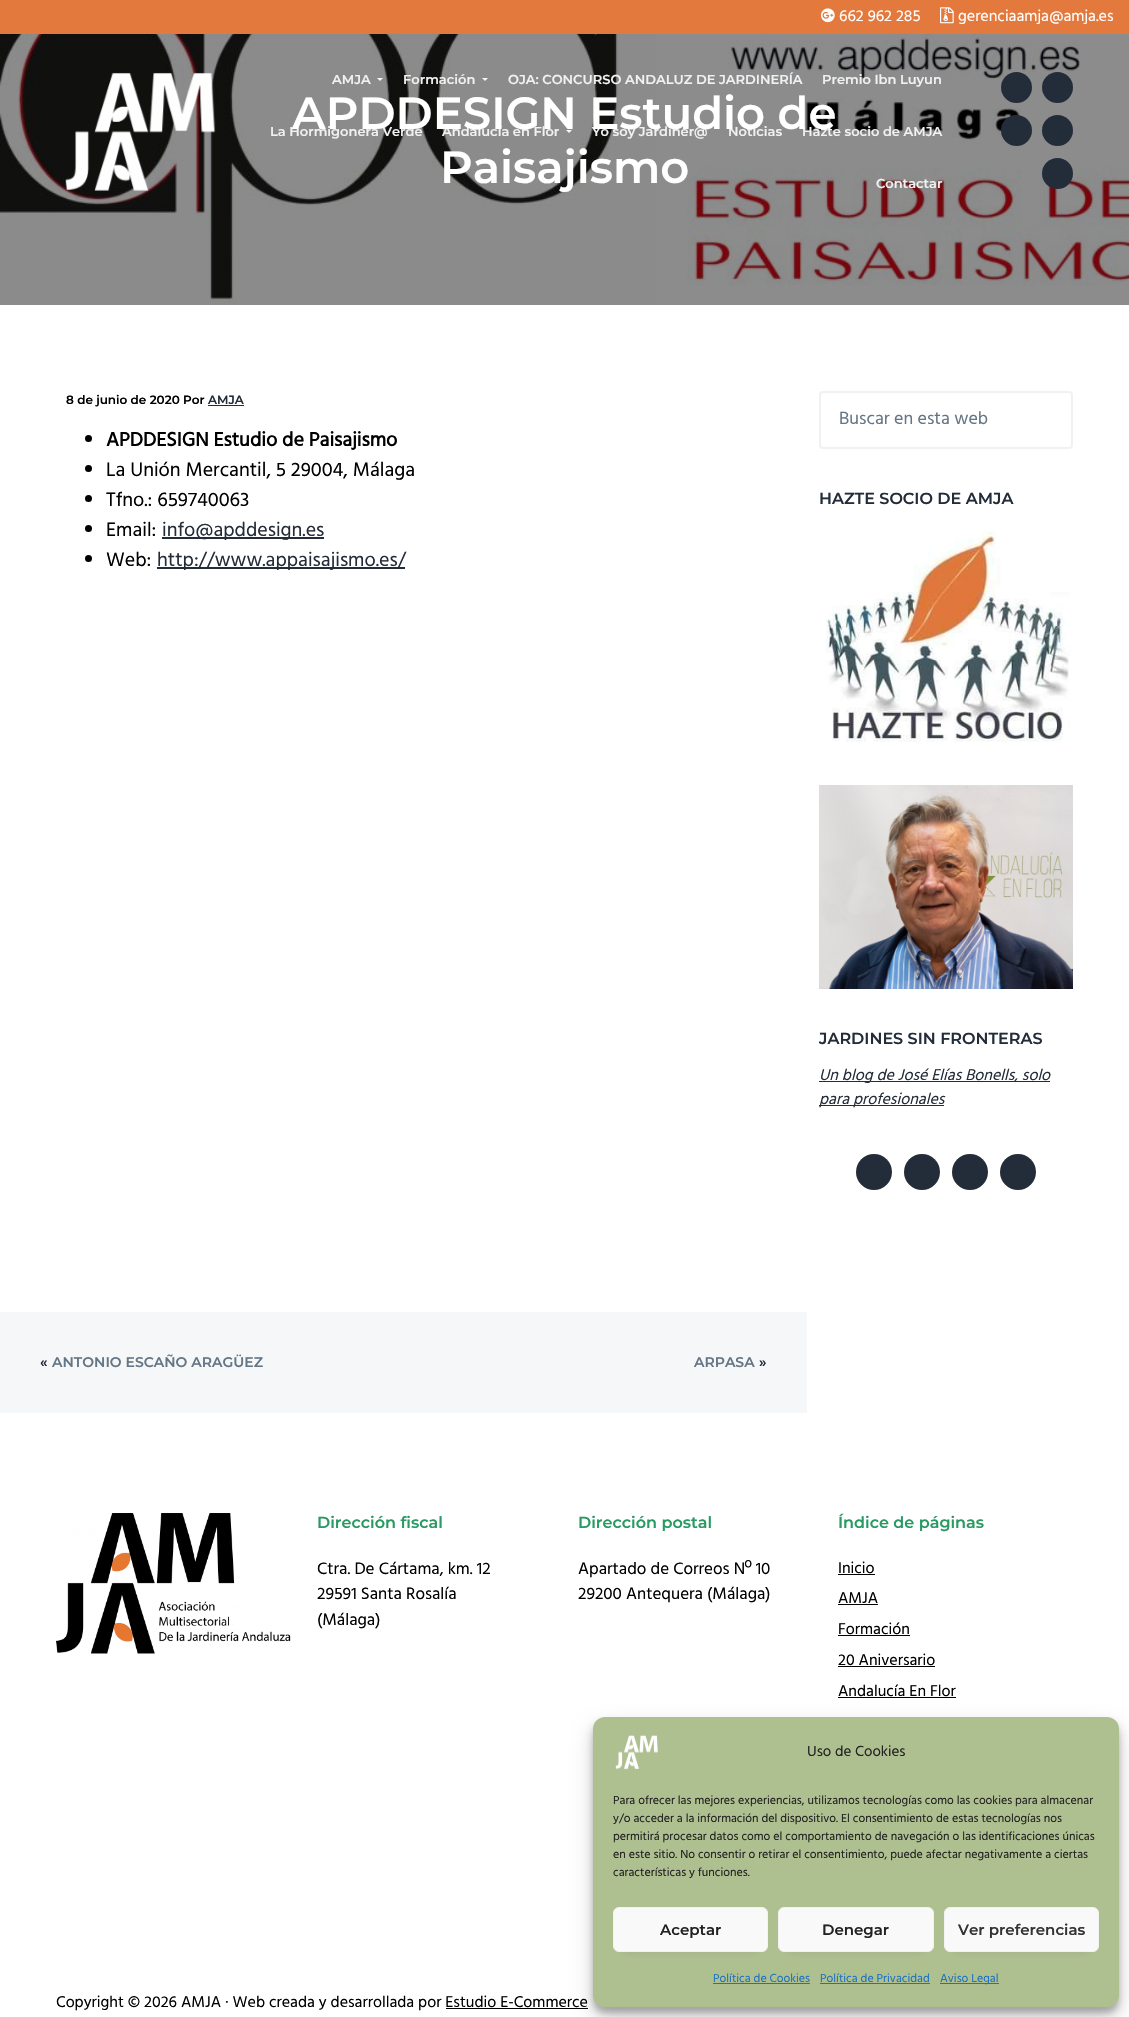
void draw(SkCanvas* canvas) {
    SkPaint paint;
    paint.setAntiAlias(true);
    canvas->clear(0xFFFFFFFF);
    paint.setColor(0xFFE4793D);
    canvas->drawRect(SkRect::MakeXYWH(0, 0, 1129, 34), paint);
    canvas->drawImageRect(SkImages::DeferredFromEncodedData(SkData::MakeFromFileName("img1.png")), SkRect::MakeXYWH(821, 8, 14, 15), SkSamplingOptions());
    SkFont font1(fontMgr->matchFamilyStyle("Hind", SkFontStyle::Normal()), 16);
    font1.setSubpixel(true);
    paint.setColor(0xFFFFFFFF);
    canvas->drawString("662 962 285", 839, 21, font1, paint);
    canvas->drawImageRect(SkImages::DeferredFromEncodedData(SkData::MakeFromFileName("img2.png")), SkRect::MakeXYWH(940, 7, 14, 17), SkSamplingOptions());
    canvas->drawString("gerenciaamja@amja.es", 958, 21, font1, paint);
    canvas->drawImageRect(SkImages::DeferredFromEncodedData(SkData::MakeFromFileName("img4.png")), SkRect::MakeXYWH(0, 34, 1129, 271), SkSamplingOptions());
    canvas->drawImageRect(SkImages::DeferredFromEncodedData(SkData::MakeFromFileName("img3.png")), SkRect::MakeXYWH(65, 72, 151, 119), SkSamplingOptions());
    SkFont font2(fontMgr->matchFamilyStyle("Montserrat", SkFontStyle(100, SkFontStyle::kNormal_Width, SkFontStyle::kUpright_Slant)), 13);
    font2.setSubpixel(true);
    paint.setColor(0xFFF0F1F2);
    canvas->drawString("AMJA", 332, 84, font2, paint);
    paint.setColor(0xFFF6F7F8);
    canvas->drawPath(SkPathBuilder().moveTo(377, 78).lineTo(383, 78).lineTo(380, 81).close().detach(), paint);
    paint.setColor(0xFFF0F1F2);
    canvas->drawString("Formación", 403, 84, font2, paint);
    paint.setColor(0xFFF6F7F8);
    canvas->drawPath(SkPathBuilder().moveTo(482, 78).lineTo(488, 78).lineTo(485, 81).close().detach(), paint);
    paint.setColor(0xFFF0F1F2);
    canvas->drawString("OJA: CONCURSO ANDALUZ DE JARDINERÍA", 508, 84, font2, paint);
    canvas->drawString("Premio Ibn Luyun", 822, 84, font2, paint);
    canvas->drawString("La Hormigonera Verde", 270, 136, font2, paint);
    canvas->drawString("Andalucía en Flor", 442, 136, font2, paint);
    paint.setColor(0xFFF6F7F8);
    canvas->drawPath(SkPathBuilder().moveTo(566, 130).lineTo(572, 130).lineTo(569, 133).close().detach(), paint);
    paint.setColor(0xFFF0F1F2);
    canvas->drawString("Yo soy Jardiner@", 592, 136, font2, paint);
    canvas->drawString("Noticias", 728, 136, font2, paint);
    canvas->drawString("Hazte socio de AMJA", 802, 136, font2, paint);
    canvas->drawString("Contactar", 876, 188, font2, paint);
    paint.setColor(0xFF232C39);
    canvas->drawCircle(1016.5f, 87.5f, 15.5f, paint);
    canvas->drawCircle(1057.5f, 87.5f, 15.5f, paint);
    canvas->drawCircle(1016.5f, 130.5f, 15.5f, paint);
    canvas->drawCircle(1057.5f, 130.5f, 15.5f, paint);
    canvas->drawCircle(1057.5f, 173.5f, 15.5f, paint);
    SkFont font3(fontMgr->matchFamilyStyle("Montserrat", SkFontStyle(100, SkFontStyle::kNormal_Width, SkFontStyle::kUpright_Slant)), 45);
    font3.setSubpixel(true);
    paint.setColor(0xFFFFFFFF);
    canvas->drawString("APDDESIGN Estudio de", 292, 129, font3, paint);
    canvas->drawString("Paisajismo", 440, 183, font3, paint);
    SkFont font4(fontMgr->matchFamilyStyle("Montserrat", SkFontStyle(100, SkFontStyle::kNormal_Width, SkFontStyle::kUpright_Slant)), 12);
    font4.setSubpixel(true);
    paint.setColor(0xFF000000);
    canvas->drawString("8 de junio de 2020 Por", 66, 404, font4, paint);
    paint.setColor(0xFF232C39);
    canvas->drawString("AMJA", 208, 404, font4, paint);
    canvas->drawRect(SkRect::MakeXYWH(208, 405, 36, 1), paint);
    paint.setColor(0xFF000000);
    canvas->drawCircle(88.5f, 438.5f, 3.5f, paint);
    SkFont font5(fontMgr->matchFamilyStyle("Hind", SkFontStyle::Bold()), 20);
    font5.setSubpixel(true);
    canvas->drawString("APDDESIGN Estudio de Paisajismo", 106, 446, font5, paint);
    canvas->drawCircle(88.5f, 468.5f, 3.5f, paint);
    SkFont font6(fontMgr->matchFamilyStyle("Hind", SkFontStyle::Normal()), 20);
    font6.setSubpixel(true);
    canvas->drawString("La Unión Mercantil, 5 29004, Málaga", 106, 476, font6, paint);
    canvas->drawCircle(88.5f, 498.5f, 3.5f, paint);
    canvas->drawString("Tfno.: 659740063", 106, 506, font6, paint);
    canvas->drawCircle(88.5f, 528.5f, 3.5f, paint);
    canvas->drawString("Email:", 106, 536, font6, paint);
    paint.setColor(0xFF232C39);
    canvas->drawRect(SkRect::MakeXYWH(162, 537, 162, 2), paint);
    canvas->drawString("info@apddesign.es", 162, 536, font6, paint);
    paint.setColor(0xFF000000);
    canvas->drawCircle(88.5f, 558.5f, 3.5f, paint);
    canvas->drawString("Web:", 106, 566, font6, paint);
    paint.setColor(0xFF232C39);
    canvas->drawRect(SkRect::MakeXYWH(157, 567, 248, 2), paint);
    canvas->drawString("http://www.appaisajismo.es/", 157, 566, font6, paint);
    paint.setStyle(SkPaint::kStroke_Style);
    paint.setStrokeWidth(2);
    paint.setColor(0xFFF0F1F2);
    canvas->drawRoundRect(SkRect::MakeXYWH(820, 392, 252, 56), 3, 3, paint);
    SkFont font7(fontMgr->matchFamilyStyle("Hind", SkFontStyle::Normal()), 18);
    font7.setSubpixel(true);
    paint.setStyle(SkPaint::kFill_Style);
    paint.setColor(0xFF647585);
    canvas->drawString("Buscar en esta web", 839, 424, font7, paint);
    SkFont font8(fontMgr->matchFamilyStyle("Montserrat", SkFontStyle(100, SkFontStyle::kNormal_Width, SkFontStyle::kUpright_Slant)), 16);
    font8.setSubpixel(true);
    paint.setColor(0xFF232C39);
    canvas->drawString("HAZTE SOCIO DE AMJA", 819, 504, font8, paint);
    canvas->drawImageRect(SkImages::DeferredFromEncodedData(SkData::MakeFromFileName("img5.png")), SkRect::MakeXYWH(826, 531, 244, 211), SkSamplingOptions());
    canvas->drawImageRect(SkImages::DeferredFromEncodedData(SkData::MakeFromFileName("img6.png")), SkRect::MakeXYWH(819, 785, 254, 204), SkSamplingOptions());
    canvas->drawString("JARDINES SIN FRONTERAS", 819, 1044, font8, paint);
    canvas->drawRect(SkRect::MakeXYWH(819, 1081, 231, 1), paint);
    SkFont font9(fontMgr->matchFamilyStyle("Hind", SkFontStyle::Italic()), 16);
    font9.setSubpixel(true);
    canvas->drawString("Un blog de José Elías Bonells, solo", 819, 1080, font9, paint);
    canvas->drawRect(SkRect::MakeXYWH(819, 1105, 125, 1), paint);
    canvas->drawString("para profesionales", 819, 1104, font9, paint);
    canvas->drawCircle(874, 1172, 18, paint);
    canvas->drawCircle(922, 1172, 18, paint);
    canvas->drawCircle(970, 1172, 18, paint);
    canvas->drawCircle(1018, 1172, 18, paint);
    paint.setColor(0xFFF6F7F8);
    canvas->drawRect(SkRect::MakeXYWH(0, 1312, 807, 101), paint);
    SkFont font10(fontMgr->matchFamilyStyle("Montserrat", SkFontStyle(100, SkFontStyle::kNormal_Width, SkFontStyle::kUpright_Slant)), 14);
    font10.setSubpixel(true);
    paint.setColor(0xFF232C39);
    canvas->drawString("«", 40, 1367, font10, paint);
    paint.setColor(0xFF647585);
    canvas->drawString("ANTONIO ESCAÑO ARAGÜEZ", 52, 1367, font10, paint);
    canvas->drawString("ARPASA", 694, 1367, font10, paint);
    paint.setColor(0xFF232C39);
    canvas->drawString("»", 759, 1367, font10, paint);
    canvas->drawImageRect(SkImages::DeferredFromEncodedData(SkData::MakeFromFileName("img7.png")), SkRect::MakeXYWH(56, 1513, 235, 141), SkSamplingOptions());
    paint.setColor(0xFF299A62);
    canvas->drawString("Dirección fiscal", 317, 1528, font8, paint);
    SkFont font11(fontMgr->matchFamilyStyle("Hind", SkFontStyle::Normal()), 17);
    font11.setSubpixel(true);
    paint.setColor(0xFF000000);
    canvas->drawString("Ctra. De Cártama, km. 12", 317, 1574, font11, paint);
    canvas->drawString("29591 Santa Rosalía", 317, 1599, font11, paint);
    canvas->drawString("(Málaga)", 317, 1625, font11, paint);
    paint.setColor(0xFF299A62);
    canvas->drawString("Dirección postal", 578, 1528, font8, paint);
    paint.setColor(0xFF000000);
    canvas->drawString("Apartado de Correos Nº 10", 578, 1574, font11, paint);
    canvas->drawString("29200 Antequera (Málaga)", 578, 1599, font11, paint);
    paint.setColor(0xFF299A62);
    canvas->drawString("Índice de páginas", 838, 1528, font8, paint);
    paint.setColor(0xFF000000);
    canvas->drawString("Inicio", 838, 1573, font1, paint);
    canvas->drawRect(SkRect::MakeXYWH(838, 1574, 37, 1), paint);
    canvas->drawString("AMJA", 838, 1603, font1, paint);
    canvas->drawRect(SkRect::MakeXYWH(838, 1604, 40, 1), paint);
    canvas->drawString("Formación", 838, 1634, font1, paint);
    canvas->drawRect(SkRect::MakeXYWH(838, 1635, 72, 1), paint);
    canvas->drawString("20 Aniversario", 838, 1665, font1, paint);
    canvas->drawRect(SkRect::MakeXYWH(838, 1666, 97, 1), paint);
    canvas->drawString("Andalucía En Flor", 838, 1696, font1, paint);
    canvas->drawRect(SkRect::MakeXYWH(838, 1697, 118, 1), paint);
    canvas->drawString("Copyright © 2026 AMJA · Web creada y desarrollada por Estudio E-Commerce", 56, 2007, font1, paint);
    canvas->drawRect(SkRect::MakeXYWH(446, 2008, 142, 1), paint);
    paint.setColor(0x3B000000);
    paint.setMaskFilter(SkMaskFilter::MakeBlur(kNormal_SkBlurStyle, 3));
    canvas->drawRoundRect(SkRect::MakeXYWH(593, 1723, 526, 290), 12, 12, paint);
    paint.setMaskFilter(nullptr);
    paint.setColor(0x30000000);
    paint.setMaskFilter(SkMaskFilter::MakeBlur(kNormal_SkBlurStyle, 10));
    canvas->drawRoundRect(SkRect::MakeXYWH(593, 1727, 526, 290), 12, 12, paint);
    paint.setMaskFilter(nullptr);
    paint.setColor(0xFFAEBF90);
    canvas->drawRoundRect(SkRect::MakeXYWH(593, 1717, 526, 290), 12, 12, paint);
    canvas->drawImageRect(SkImages::DeferredFromEncodedData(SkData::MakeFromFileName("img8.png")), SkRect::MakeXYWH(615, 1735, 43, 35), SkSamplingOptions());
    SkFont font12(fontMgr->matchFamilyStyle("Hind", SkFontStyle::Normal()), 15);
    font12.setSubpixel(true);
    paint.setColor(0xFF222222);
    canvas->drawString("Uso de Cookies", 807, 1756, font12, paint);
    SkFont font13(fontMgr->matchFamilyStyle("Hind", SkFontStyle::Normal()), 12);
    font13.setSubpixel(true);
    canvas->drawString("Para ofrecer las mejores experiencias, utilizamos tecnologías como las cookies para almacenar", 613, 1804, font13, paint);
    canvas->drawString("y/o acceder a la información del dispositivo. El consentimiento de estas tecnologías nos", 613, 1822, font13, paint);
    canvas->drawString("permitirá procesar datos como el comportamiento de navegación o las identificaciones únicas", 613, 1840, font13, paint);
    canvas->drawString("en este sitio. No consentir o retirar el consentimiento, puede afectar negativamente a ciertas", 613, 1858, font13, paint);
    canvas->drawString("características y funciones.", 613, 1876, font13, paint);
    paint.setColor(0x1A232C39);
    paint.setMaskFilter(SkMaskFilter::MakeBlur(kNormal_SkBlurStyle, 5));
    canvas->drawRect(SkRect::MakeXYWH(623, 1927, 135, 25), paint);
    paint.setMaskFilter(nullptr);
    paint.setColor(0xFFF9F9F9);
    canvas->drawRoundRect(SkRect::MakeXYWH(613.5f, 1907.5f, 154, 44), 5.5f, 5.5f, paint);
    paint.setStyle(SkPaint::kStroke_Style);
    paint.setStrokeWidth(1);
    paint.setColor(0xFFF2F2F2);
    canvas->drawRoundRect(SkRect::MakeXYWH(613.5f, 1907.5f, 154, 44), 5.5f, 5.5f, paint);
    SkFont font14(fontMgr->matchFamilyStyle("Montserrat", SkFontStyle(100, SkFontStyle::kNormal_Width, SkFontStyle::kUpright_Slant)), 15);
    font14.setSubpixel(true);
    paint.setStyle(SkPaint::kFill_Style);
    paint.setColor(0xFF222222);
    canvas->drawString("Aceptar", 660, 1935, font14, paint);
    paint.setColor(0x1A232C39);
    paint.setMaskFilter(SkMaskFilter::MakeBlur(kNormal_SkBlurStyle, 5));
    canvas->drawRect(SkRect::MakeXYWH(788, 1927, 136, 25), paint);
    paint.setMaskFilter(nullptr);
    paint.setColor(0xFFF9F9F9);
    canvas->drawRoundRect(SkRect::MakeXYWH(778.5f, 1907.5f, 155, 44), 5.5f, 5.5f, paint);
    paint.setStyle(SkPaint::kStroke_Style);
    paint.setColor(0xFFF2F2F2);
    canvas->drawRoundRect(SkRect::MakeXYWH(778.5f, 1907.5f, 155, 44), 5.5f, 5.5f, paint);
    paint.setStyle(SkPaint::kFill_Style);
    paint.setColor(0xFF222222);
    canvas->drawString("Denegar", 822, 1935, font14, paint);
    paint.setColor(0x1A232C39);
    paint.setMaskFilter(SkMaskFilter::MakeBlur(kNormal_SkBlurStyle, 5));
    canvas->drawRect(SkRect::MakeXYWH(954, 1927, 135, 25), paint);
    paint.setMaskFilter(nullptr);
    paint.setColor(0xFFF9F9F9);
    canvas->drawRoundRect(SkRect::MakeXYWH(944.5f, 1907.5f, 154, 44), 5.5f, 5.5f, paint);
    paint.setStyle(SkPaint::kStroke_Style);
    paint.setColor(0xFFF2F2F2);
    canvas->drawRoundRect(SkRect::MakeXYWH(944.5f, 1907.5f, 154, 44), 5.5f, 5.5f, paint);
    paint.setStyle(SkPaint::kFill_Style);
    paint.setColor(0xFF333333);
    canvas->drawString("Ver preferencias", 958, 1935, font14, paint);
    paint.setColor(0xFF1E73BE);
    canvas->drawString("Política de Cookies", 713, 1982, font13, paint);
    canvas->drawRect(SkRect::MakeXYWH(713, 1983, 97, 1), paint);
    canvas->drawString("Política de Privacidad", 820, 1982, font13, paint);
    canvas->drawRect(SkRect::MakeXYWH(820, 1983, 110, 1), paint);
    canvas->drawRect(SkRect::MakeXYWH(940, 1983, 59, 1), paint);
    canvas->drawString("Aviso Legal", 940, 1982, font13, paint);
}
